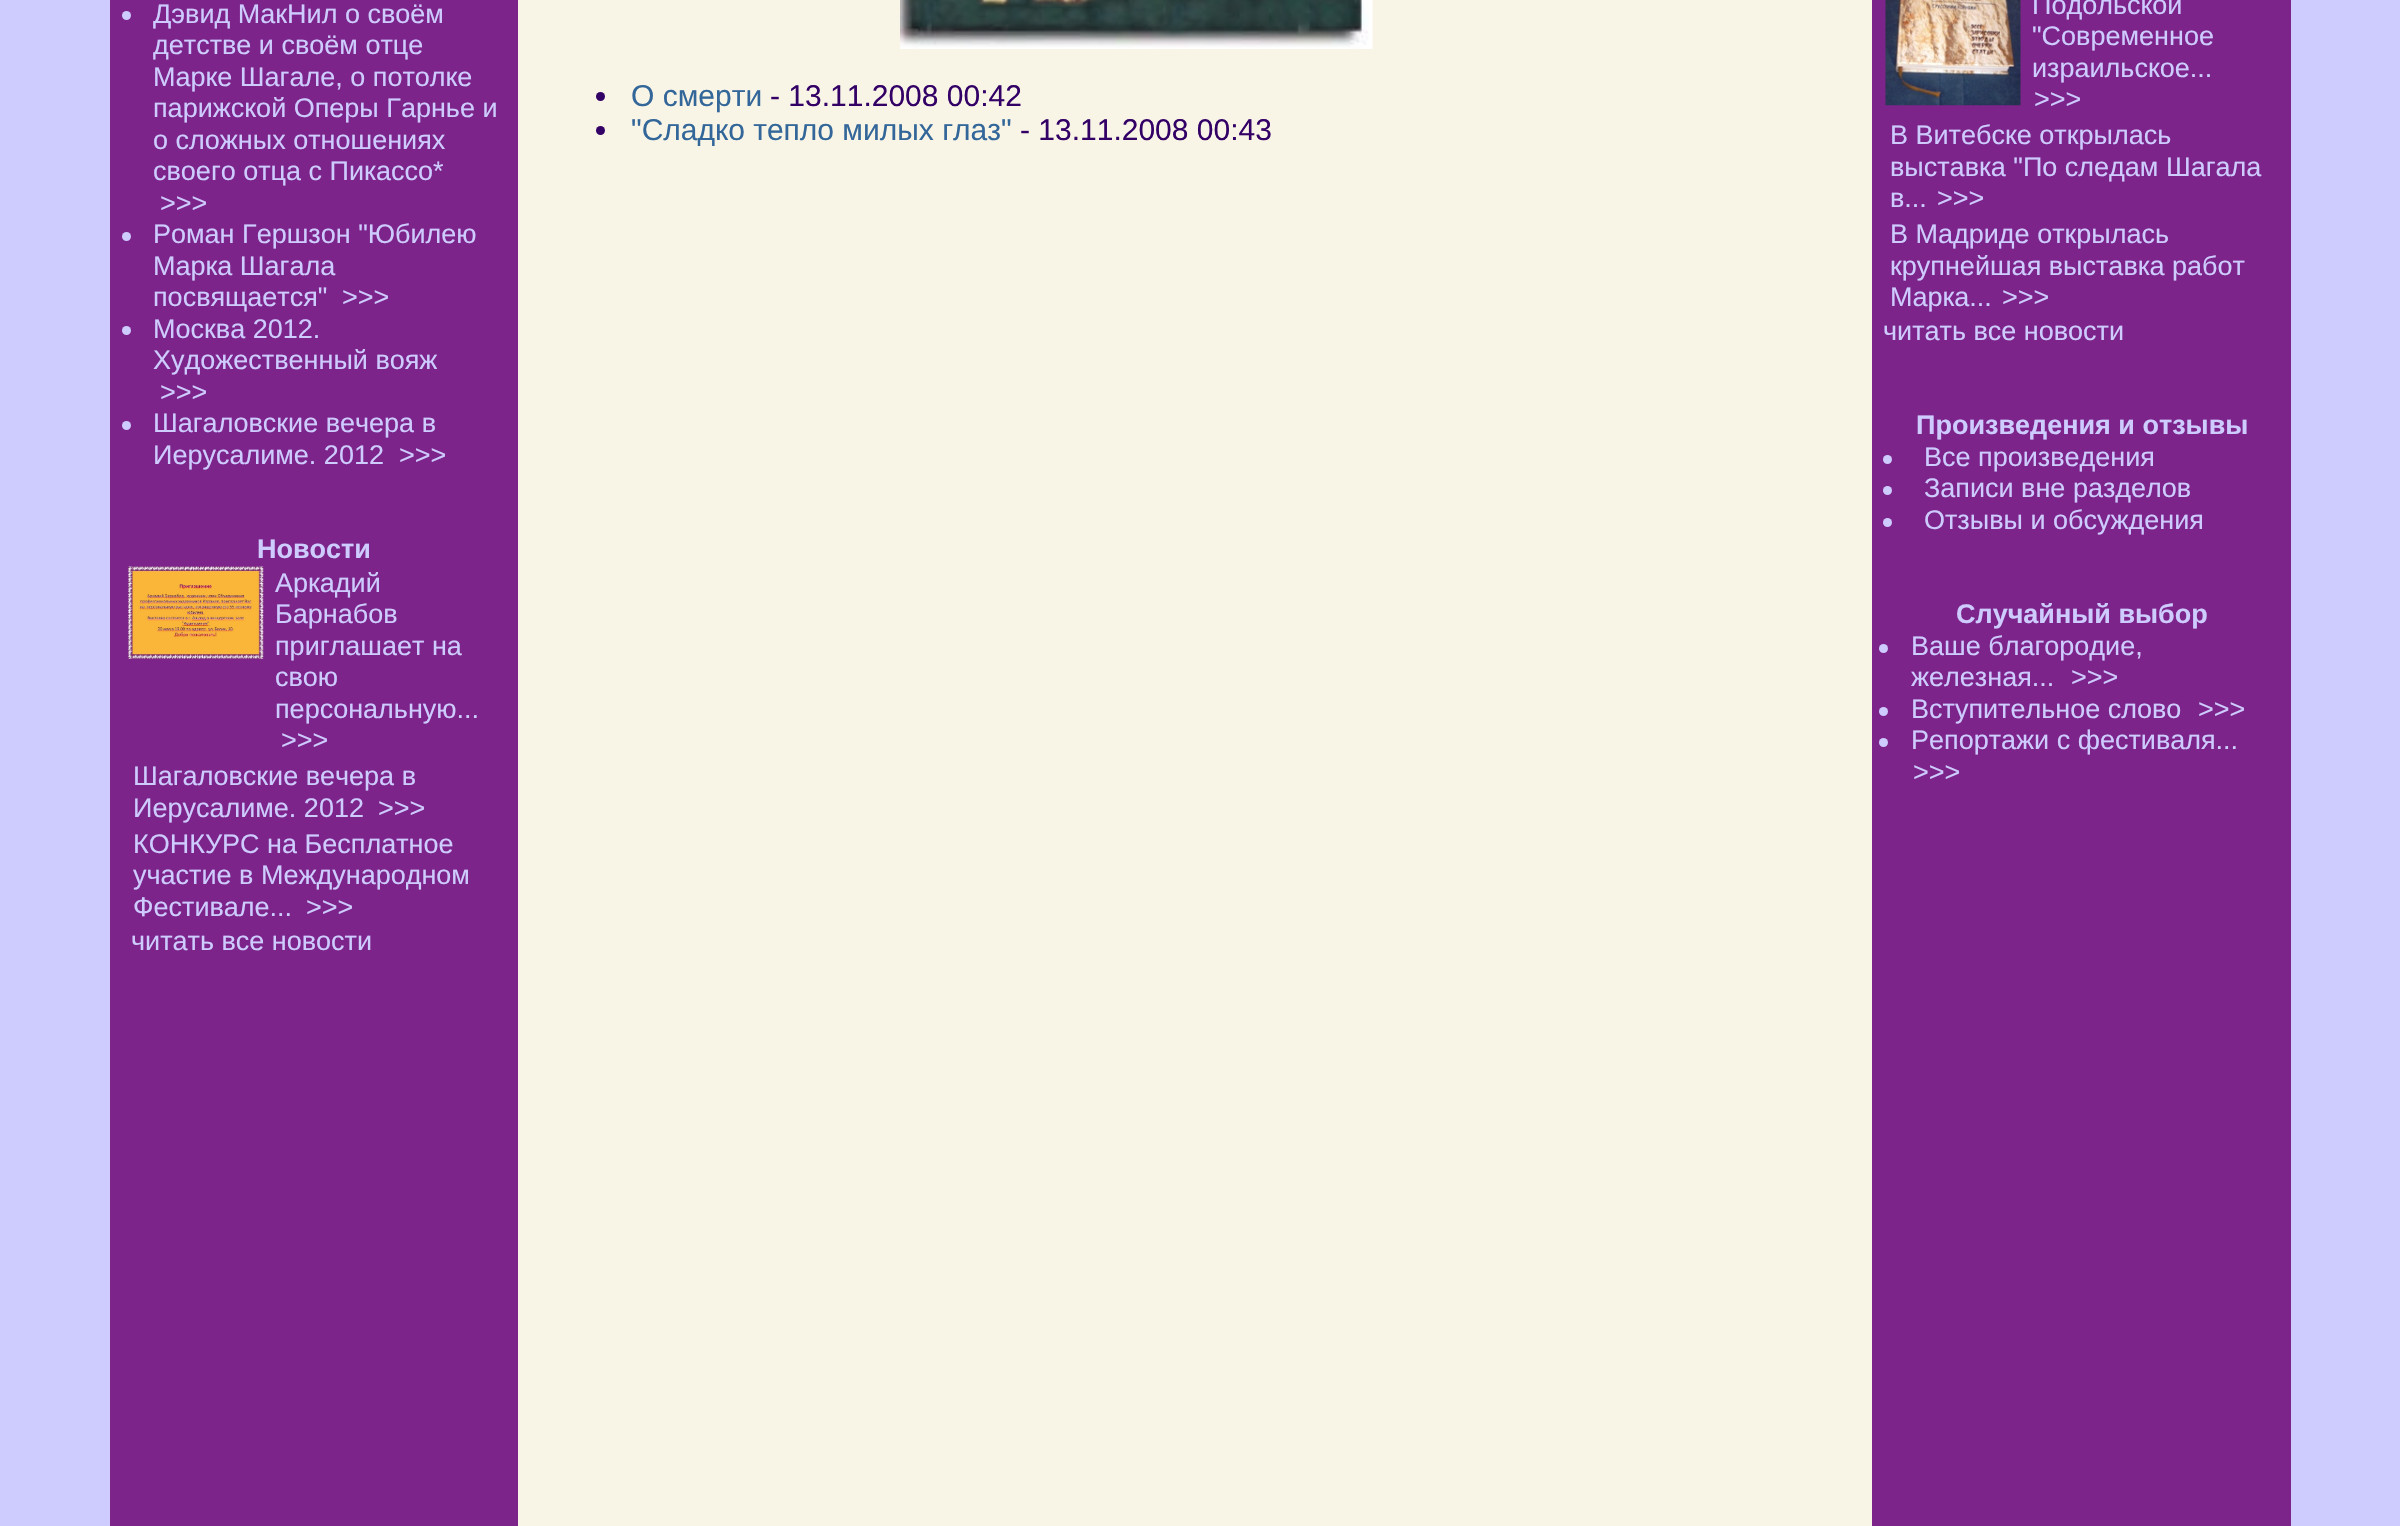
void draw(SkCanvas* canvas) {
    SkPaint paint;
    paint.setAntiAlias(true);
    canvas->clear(0xFFCECBFF);
    paint.setColor(0xFF7C248A);
    canvas->drawRect(SkRect::MakeXYWH(110, 0, 408, 1526), paint);
    paint.setColor(0xFFCECBFF);
    canvas->drawCircle(126.5f, 15.5f, 4.5f, paint);
    SkFont font1(fontMgr->matchFamilyStyle("Liberation Sans", SkFontStyle::Normal()), 27);
    font1.setSubpixel(true);
    canvas->drawString("Дэвид МакНил о своём", 153, 23, font1, paint);
    canvas->drawString("детстве и своём отце", 153, 54, font1, paint);
    canvas->drawString("Марке Шагале, о потолке", 153, 86, font1, paint);
    canvas->drawString("парижской Оперы Гарнье и", 153, 117, font1, paint);
    canvas->drawString("о сложных отношениях", 153, 149, font1, paint);
    canvas->drawString("своего отца с Пикассо*", 153, 180, font1, paint);
    canvas->drawString(">>>", 160, 212, font1, paint);
    canvas->drawCircle(126.5f, 236.5f, 4.5f, paint);
    canvas->drawString("Роман Гершзон \"Юбилею", 153, 243, font1, paint);
    canvas->drawString("Марка Шагала", 153, 275, font1, paint);
    canvas->drawString("посвящается\"", 153, 306, font1, paint);
    canvas->drawString(">>>", 342, 306, font1, paint);
    canvas->drawCircle(126.5f, 330.5f, 4.5f, paint);
    canvas->drawString("Москва 2012.", 153, 338, font1, paint);
    canvas->drawString("Художественный вояж", 153, 369, font1, paint);
    canvas->drawString(">>>", 160, 401, font1, paint);
    canvas->drawCircle(126.5f, 425.5f, 4.5f, paint);
    canvas->drawString("Шагаловские вечера в", 153, 432, font1, paint);
    canvas->drawString("Иерусалиме. 2012", 153, 464, font1, paint);
    canvas->drawString(">>>", 399, 464, font1, paint);
    SkFont font2(fontMgr->matchFamilyStyle("Liberation Sans", SkFontStyle::Bold()), 27);
    font2.setSubpixel(true);
    canvas->drawString("Новости", 257, 558, font2, paint);
    canvas->drawImageRect(SkImages::DeferredFromEncodedData(SkData::MakeFromFileName("img1.png")), SkRect::MakeXYWH(128, 566, 136, 93), SkSamplingOptions());
    canvas->drawString("Аркадий", 275, 592, font1, paint);
    canvas->drawString("Барнабов", 275, 623, font1, paint);
    canvas->drawString("приглашает на", 275, 655, font1, paint);
    canvas->drawString("свою", 275, 686, font1, paint);
    canvas->drawString("персональную...", 275, 718, font1, paint);
    canvas->drawString(">>>", 281, 749, font1, paint);
    canvas->drawString("Шагаловские вечера в", 133, 785, font1, paint);
    canvas->drawString("Иерусалиме. 2012", 133, 817, font1, paint);
    canvas->drawString(">>>", 378, 817, font1, paint);
    canvas->drawString("КОНКУРС на Бесплатное", 133, 853, font1, paint);
    canvas->drawString("участие в Международном", 133, 884, font1, paint);
    canvas->drawString("Фестивале...", 133, 916, font1, paint);
    canvas->drawString(">>>", 306, 916, font1, paint);
    canvas->drawString("читать все новости", 131, 950, font1, paint);
    paint.setColor(0xFFF8F5E7);
    canvas->drawRect(SkRect::MakeXYWH(518, 0, 1354, 1526), paint);
    canvas->drawImageRect(SkImages::DeferredFromEncodedData(SkData::MakeFromFileName("img2.png")), SkRect::MakeXYWH(900, 0, 473, 49), SkSamplingOptions());
    paint.setColor(0xFF330066);
    canvas->drawCircle(600.5f, 96.5f, 4.5f, paint);
    SkFont font3(fontMgr->matchFamilyStyle("Liberation Sans", SkFontStyle::Normal()), 30);
    font3.setSubpixel(true);
    paint.setColor(0xFF336699);
    canvas->drawString("О смерти", 631, 106, font3, paint);
    paint.setColor(0xFF330066);
    canvas->drawString("- 13.11.2008 00:42", 770, 106, font3, paint);
    canvas->drawCircle(600.5f, 130.5f, 4.5f, paint);
    paint.setColor(0xFF336699);
    canvas->drawString("\"Сладко тепло милых глаз\"", 631, 140, font3, paint);
    paint.setColor(0xFF330066);
    canvas->drawString("- 13.11.2008 00:43", 1020, 140, font3, paint);
    paint.setColor(0xFF7C248A);
    canvas->drawRect(SkRect::MakeXYWH(1872, 0, 419, 1526), paint);
    canvas->drawImageRect(SkImages::DeferredFromEncodedData(SkData::MakeFromFileName("img3.png")), SkRect::MakeXYWH(1885, 0, 136, 106), SkSamplingOptions());
    paint.setColor(0xFFCECBFF);
    canvas->drawString("Подольской", 2032, 14, font1, paint);
    canvas->drawString("\"Современное", 2032, 45, font1, paint);
    canvas->drawString("израильское...", 2032, 77, font1, paint);
    canvas->drawString(">>>", 2034, 108, font1, paint);
    canvas->drawString("В Витебске открылась", 1890, 144, font1, paint);
    canvas->drawString("выставка \"По следам Шагала", 1890, 176, font1, paint);
    canvas->drawString("в...", 1890, 207, font1, paint);
    canvas->drawString(">>>", 1937, 207, font1, paint);
    canvas->drawString("В Мадриде открылась", 1890, 243, font1, paint);
    canvas->drawString("крупнейшая выставка работ", 1890, 275, font1, paint);
    canvas->drawString("Марка...", 1890, 306, font1, paint);
    canvas->drawString(">>>", 2002, 306, font1, paint);
    canvas->drawString("читать все новости", 1883, 340, font1, paint);
    canvas->drawString("Произведения и отзывы", 1916, 434, font2, paint);
    canvas->drawCircle(1887.5f, 459.5f, 4.5f, paint);
    canvas->drawString("Все произведения", 1924, 466, font1, paint);
    canvas->drawCircle(1887.5f, 490.5f, 4.5f, paint);
    canvas->drawString("Записи вне разделов", 1924, 497, font1, paint);
    canvas->drawCircle(1887.5f, 522.5f, 4.5f, paint);
    canvas->drawString("Отзывы и обсуждения", 1924, 529, font1, paint);
    canvas->drawString("Случайный выбор", 1956, 623, font2, paint);
    canvas->drawCircle(1883.5f, 648.5f, 4.5f, paint);
    canvas->drawString("Ваше благородие,", 1911, 655, font1, paint);
    canvas->drawString("железная...", 1911, 686, font1, paint);
    canvas->drawString(">>>", 2071, 686, font1, paint);
    canvas->drawCircle(1883.5f, 711.5f, 4.5f, paint);
    canvas->drawString("Вступительное слово", 1911, 718, font1, paint);
    canvas->drawString(">>>", 2198, 718, font1, paint);
    canvas->drawCircle(1883.5f, 742.5f, 4.5f, paint);
    canvas->drawString("Репортажи с фестиваля...", 1911, 749, font1, paint);
    canvas->drawString(">>>", 1913, 781, font1, paint);
}
